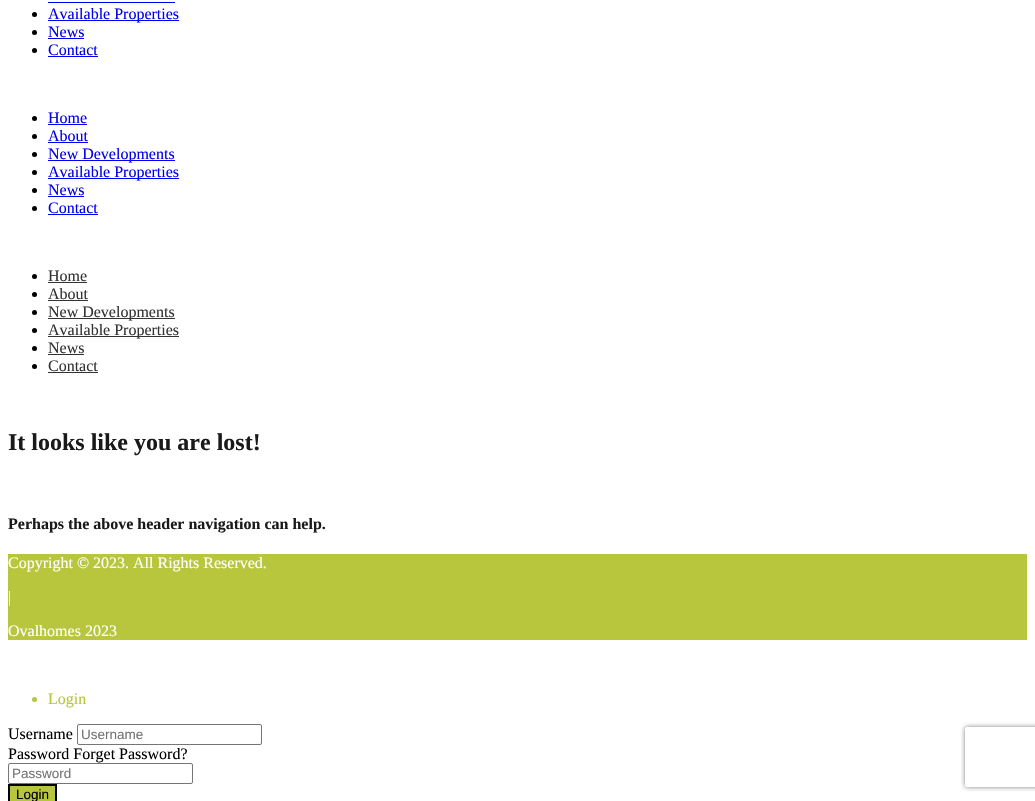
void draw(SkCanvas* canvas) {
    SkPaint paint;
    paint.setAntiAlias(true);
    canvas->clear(0xFFFFFFFF);
    paint.setColor(0xFF0000EE);
    canvas->drawRect(SkRect::MakeXYWH(48, 2, 127, 1), paint);
    paint.setColor(0xFF000000);
    canvas->drawCircle(34.5f, 14.5f, 2.5f, paint);
    paint.setColor(0xFF0000EE);
    canvas->drawRect(SkRect::MakeXYWH(48, 20, 131, 1), paint);
    SkFont font1(fontMgr->matchFamilyStyle("Liberation Serif", SkFontStyle::Normal()), 16);
    font1.setSubpixel(true);
    canvas->drawString("Available Properties", 48, 19, font1, paint);
    paint.setColor(0xFF000000);
    canvas->drawCircle(34.5f, 32.5f, 2.5f, paint);
    paint.setColor(0xFF0000EE);
    canvas->drawString("News", 48, 37, font1, paint);
    canvas->drawRect(SkRect::MakeXYWH(48, 38, 36, 1), paint);
    paint.setColor(0xFF000000);
    canvas->drawCircle(34.5f, 50.5f, 2.5f, paint);
    paint.setColor(0xFF0000EE);
    canvas->drawString("Contact", 48, 55, font1, paint);
    canvas->drawRect(SkRect::MakeXYWH(48, 56, 50, 1), paint);
    paint.setColor(0xFF000000);
    canvas->drawCircle(34.5f, 118.5f, 2.5f, paint);
    paint.setColor(0xFF0000EE);
    canvas->drawString("Home", 48, 123, font1, paint);
    canvas->drawRect(SkRect::MakeXYWH(48, 124, 39, 1), paint);
    paint.setColor(0xFF000000);
    canvas->drawCircle(34.5f, 136.5f, 2.5f, paint);
    paint.setColor(0xFF0000EE);
    canvas->drawString("About", 48, 141, font1, paint);
    canvas->drawRect(SkRect::MakeXYWH(48, 142, 40, 1), paint);
    paint.setColor(0xFF000000);
    canvas->drawCircle(34.5f, 154.5f, 2.5f, paint);
    paint.setColor(0xFF0000EE);
    canvas->drawRect(SkRect::MakeXYWH(48, 160, 127, 1), paint);
    canvas->drawString("New Developments", 48, 159, font1, paint);
    paint.setColor(0xFF000000);
    canvas->drawCircle(34.5f, 172.5f, 2.5f, paint);
    paint.setColor(0xFF0000EE);
    canvas->drawRect(SkRect::MakeXYWH(48, 178, 131, 1), paint);
    canvas->drawString("Available Properties", 48, 177, font1, paint);
    paint.setColor(0xFF000000);
    canvas->drawCircle(34.5f, 190.5f, 2.5f, paint);
    paint.setColor(0xFF0000EE);
    canvas->drawString("News", 48, 195, font1, paint);
    canvas->drawRect(SkRect::MakeXYWH(48, 196, 36, 1), paint);
    paint.setColor(0xFF000000);
    canvas->drawCircle(34.5f, 208.5f, 2.5f, paint);
    paint.setColor(0xFF0000EE);
    canvas->drawString("Contact", 48, 213, font1, paint);
    canvas->drawRect(SkRect::MakeXYWH(48, 214, 50, 1), paint);
    paint.setColor(0xFF000000);
    canvas->drawCircle(34.5f, 276.5f, 2.5f, paint);
    paint.setColor(0xFF333333);
    canvas->drawString("Home", 48, 281, font1, paint);
    canvas->drawRect(SkRect::MakeXYWH(48, 282, 39, 1), paint);
    paint.setColor(0xFF000000);
    canvas->drawCircle(34.5f, 294.5f, 2.5f, paint);
    paint.setColor(0xFF333333);
    canvas->drawString("About", 48, 299, font1, paint);
    canvas->drawRect(SkRect::MakeXYWH(48, 300, 40, 1), paint);
    paint.setColor(0xFF000000);
    canvas->drawCircle(34.5f, 312.5f, 2.5f, paint);
    paint.setColor(0xFF333333);
    canvas->drawRect(SkRect::MakeXYWH(48, 318, 127, 1), paint);
    canvas->drawString("New Developments", 48, 317, font1, paint);
    paint.setColor(0xFF000000);
    canvas->drawCircle(34.5f, 330.5f, 2.5f, paint);
    paint.setColor(0xFF333333);
    canvas->drawRect(SkRect::MakeXYWH(48, 336, 131, 1), paint);
    canvas->drawString("Available Properties", 48, 335, font1, paint);
    paint.setColor(0xFF000000);
    canvas->drawCircle(34.5f, 348.5f, 2.5f, paint);
    paint.setColor(0xFF333333);
    canvas->drawString("News", 48, 353, font1, paint);
    canvas->drawRect(SkRect::MakeXYWH(48, 354, 36, 1), paint);
    paint.setColor(0xFF000000);
    canvas->drawCircle(34.5f, 366.5f, 2.5f, paint);
    paint.setColor(0xFF333333);
    canvas->drawString("Contact", 48, 371, font1, paint);
    canvas->drawRect(SkRect::MakeXYWH(48, 372, 50, 1), paint);
    SkFont font2(fontMgr->matchFamilyStyle("Liberation Serif", SkFontStyle::Bold()), 24);
    font2.setSubpixel(true);
    paint.setColor(0xFF1A1A1A);
    canvas->drawString("It looks like you are lost!", 8, 450, font2, paint);
    SkFont font3(fontMgr->matchFamilyStyle("Liberation Serif", SkFontStyle::Bold()), 16);
    font3.setSubpixel(true);
    canvas->drawString("Perhaps the above header navigation can help.", 8, 529, font3, paint);
    paint.setColor(0xFFB7C63D);
    canvas->drawRect(SkRect::MakeXYWH(8, 554, 1019, 86), paint);
    paint.setColor(0xFFFFFFFF);
    canvas->drawString("Copyright © 2023. All Rights Reserved.", 8, 568, font1, paint);
    canvas->drawString("|", 8, 602, font1, paint);
    canvas->drawString("Ovalhomes 2023", 8, 636, font1, paint);
    paint.setColor(0xFFB7C63D);
    canvas->drawCircle(34.5f, 699.5f, 2.5f, paint);
    canvas->drawString("Login", 48, 704, font1, paint);
    paint.setColor(0xFF000000);
    canvas->drawString("Username", 8, 739, font1, paint);
    paint.setStyle(SkPaint::kStroke_Style);
    paint.setStrokeWidth(1);
    paint.setColor(0xFF767676);
    canvas->drawRoundRect(SkRect::MakeXYWH(77.5f, 724.5f, 184, 20), 1.5f, 1.5f, paint);
    SkFont font4(fontMgr->matchFamilyStyle("Liberation Sans", SkFontStyle::Normal()), 13.5f);
    font4.setSubpixel(true);
    paint.setStyle(SkPaint::kFill_Style);
    paint.setColor(0xFF757575);
    canvas->drawString("Username", 81, 739, font4, paint);
    paint.setColor(0xFF000000);
    canvas->drawString("Password Forget Password?", 8, 759, font1, paint);
    paint.setStyle(SkPaint::kStroke_Style);
    paint.setColor(0xFF767676);
    canvas->drawRoundRect(SkRect::MakeXYWH(8.5f, 763.5f, 184, 20), 1.5f, 1.5f, paint);
    paint.setStyle(SkPaint::kFill_Style);
    paint.setColor(0xFF757575);
    canvas->drawString("Password", 12, 778, font4, paint);
    paint.setColor(0xFFB7C63D);
    canvas->drawRect(SkRect::MakeXYWH(9, 785, 47, 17), paint);
    paint.setStyle(SkPaint::kStroke_Style);
    paint.setStrokeWidth(2);
    paint.setColor(0xFF000000);
    canvas->drawRect(SkRect::MakeXYWH(9, 785, 47, 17), paint);
    paint.setStyle(SkPaint::kFill_Style);
    canvas->drawString("Login", 16, 799, font4, paint);
    canvas->save();
    canvas->clipPath(SkPathBuilder(SkPathFillType::kEvenOdd).moveTo(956, 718).lineTo(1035, 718).lineTo(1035, 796).lineTo(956, 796).close().moveTo(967, 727).lineTo(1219, 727).cubicTo(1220, 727, 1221, 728, 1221, 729).lineTo(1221, 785).cubicTo(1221, 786, 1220, 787, 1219, 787).lineTo(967, 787).cubicTo(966, 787, 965, 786, 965, 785).lineTo(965, 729).cubicTo(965, 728, 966, 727, 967, 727).close().detach(), true);
    paint.setColor(0xFF808080);
    paint.setMaskFilter(SkMaskFilter::MakeBlur(kNormal_SkBlurStyle, 2.5f));
    canvas->drawRoundRect(SkRect::MakeXYWH(965, 727, 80, 60), 2, 2, paint);
    paint.setMaskFilter(nullptr);
    canvas->restore();
}
